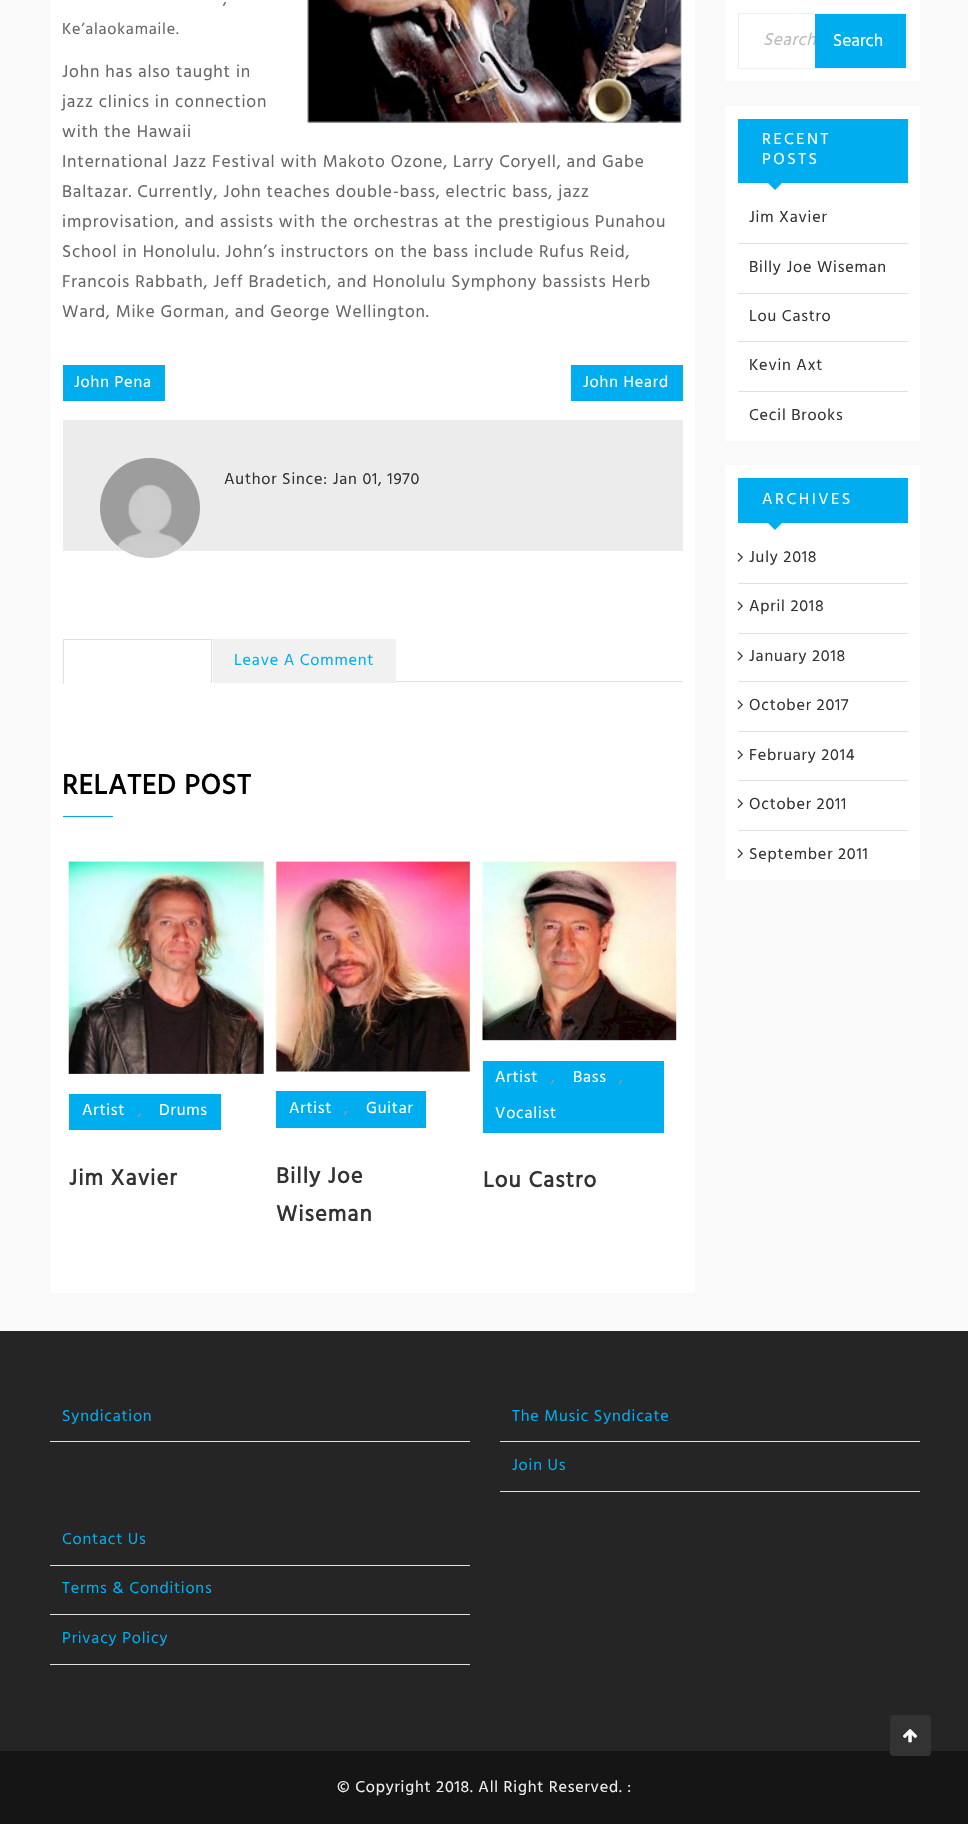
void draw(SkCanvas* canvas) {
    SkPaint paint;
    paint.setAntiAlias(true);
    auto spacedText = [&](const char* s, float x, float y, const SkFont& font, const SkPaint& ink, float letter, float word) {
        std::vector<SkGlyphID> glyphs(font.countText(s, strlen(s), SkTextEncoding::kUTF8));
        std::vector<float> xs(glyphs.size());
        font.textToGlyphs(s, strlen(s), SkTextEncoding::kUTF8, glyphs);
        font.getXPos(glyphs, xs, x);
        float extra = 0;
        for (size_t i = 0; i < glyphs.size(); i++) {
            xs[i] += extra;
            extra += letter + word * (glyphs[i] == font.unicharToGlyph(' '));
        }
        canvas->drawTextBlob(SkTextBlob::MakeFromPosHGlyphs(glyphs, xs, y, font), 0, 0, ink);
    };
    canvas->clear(0xFFF9F9F9);
    paint.setColor(0xFFFFFFFF);
    canvas->drawRect(SkRect::MakeXYWH(50, 0, 645, 1293), paint);
    SkFont font1(fontMgr->matchFamilyStyle("Hind", SkFontStyle::Normal()), 16.25f);
    font1.setSubpixel(true);
    paint.setColor(0xFF666666);
    spacedText(",", 223, 4, font1, paint, 0.8f, 0);
    canvas->drawImageRect(SkImages::DeferredFromEncodedData(SkData::MakeFromFileName("img1.png")), SkRect::MakeXYWH(307, 0, 376, 124), SkSamplingOptions());
    spacedText("Ke’alaokamaile.", 62, 34, font1, paint, 0.8f, 0);
    SkFont font2(fontMgr->matchFamilyStyle("Hind", SkFontStyle::Normal()), 17.5f);
    font2.setSubpixel(true);
    spacedText("John has also taught in", 62, 77, font2, paint, 0.8f, 0);
    spacedText("jazz clinics in connection", 62, 107, font2, paint, 0.8f, 0);
    spacedText("with the Hawaii", 62, 137, font2, paint, 0.8f, 0);
    spacedText("International Jazz Festival with Makoto Ozone, Larry Coryell, and Gabe", 62, 167, font2, paint, 0.8f, 0);
    spacedText("Baltazar. Currently, John teaches double-bass, electric bass, jazz", 62, 197, font2, paint, 0.8f, 0);
    spacedText("improvisation, and assists with the orchestras at the prestigious Punahou", 62, 227, font2, paint, 0.8f, 0);
    spacedText("School in Honolulu. John’s instructors on the bass include Rufus Reid,", 62, 257, font2, paint, 0.8f, 0);
    spacedText("Francois Rabbath, Jeff Bradetich, and Honolulu Symphony bassists Herb", 62, 287, font2, paint, 0.8f, 0);
    spacedText("Ward, Mike Gorman, and George Wellington.", 62, 317, font2, paint, 0.8f, 0);
    paint.setColor(0xFF00AEEF);
    canvas->drawRect(SkRect::MakeXYWH(63, 365, 102, 36), paint);
    paint.setColor(0xFFFFFFFF);
    spacedText("John Pena", 74, 387, font1, paint, 0.8f, 0);
    paint.setColor(0xFF00AEEF);
    canvas->drawRect(SkRect::MakeXYWH(571, 365, 112, 36), paint);
    paint.setColor(0xFFFFFFFF);
    spacedText("John Heard", 583, 387, font1, paint, 0.8f, 0);
    paint.setColor(0xFFECECEC);
    canvas->drawRect(SkRect::MakeXYWH(63, 420, 620, 131), paint);
    canvas->drawImageRect(SkImages::DeferredFromEncodedData(SkData::MakeFromFileName("img2.png")), SkRect::MakeXYWH(100, 458, 100, 93), SkSamplingOptions());
    paint.setColor(0x33000000);
    canvas->drawCircle(150, 508, 50, paint);
    paint.setColor(0xFF333333);
    spacedText("Author Since: Jan 01, 1970", 224, 484, font1, paint, 0.8f, 0);
    paint.setColor(0xFFDEE2E6);
    canvas->drawRect(SkRect::MakeXYWH(396, 681, 287, 1), paint);
    canvas->drawRect(SkRect::MakeXYWH(63, 639, 150, 1), paint);
    canvas->drawRect(SkRect::MakeXYWH(211, 639, 1, 45), paint);
    paint.setColor(0xFFFFFFFF);
    canvas->drawRect(SkRect::MakeXYWH(211, 683, 2, 1), paint);
    paint.setColor(0xFFDEE2E6);
    canvas->drawRect(SkRect::MakeXYWH(63, 639, 1, 45), paint);
    paint.setColor(0xFFF1F1F1);
    canvas->drawRect(SkRect::MakeXYWH(213, 639, 183, 44), paint);
    paint.setColor(0xFF00AEEF);
    spacedText("Leave A Comment", 234, 665, font1, paint, 0.8f, 0);
    SkFont font3(fontMgr->matchFamilyStyle("Hind", SkFontStyle::Bold()), 28.5f);
    font3.setSubpixel(true);
    paint.setColor(0xFF000000);
    spacedText("RELATED POST", 62, 794, font3, paint, 0.8f, 0);
    paint.setColor(0xFF00AEEF);
    canvas->drawRect(SkRect::MakeXYWH(63, 816, 50, 1), paint);
    canvas->drawImageRect(SkImages::DeferredFromEncodedData(SkData::MakeFromFileName("img3.png")), SkRect::MakeXYWH(68, 861, 196, 213), SkSamplingOptions());
    canvas->drawRect(SkRect::MakeXYWH(69, 1094, 152, 36), paint);
    paint.setColor(0xFFFFFFFF);
    spacedText("Artist", 82, 1115, font1, paint, 0.8f, 0);
    paint.setColor(0xFF999999);
    spacedText(",", 138, 1115, font1, paint, 0.8f, 0);
    paint.setColor(0xFFFFFFFF);
    spacedText("Drums", 159, 1115, font1, paint, 0.8f, 0);
    SkFont font4(fontMgr->matchFamilyStyle("Hind", SkFontStyle::Bold()), 22.5f);
    font4.setSubpixel(true);
    paint.setColor(0xFF333333);
    spacedText("Jim Xavier", 69, 1185, font4, paint, 1.1f, 0);
    canvas->drawImageRect(SkImages::DeferredFromEncodedData(SkData::MakeFromFileName("img4.png")), SkRect::MakeXYWH(275, 861, 195, 211), SkSamplingOptions());
    paint.setColor(0xFF00AEEF);
    canvas->drawRect(SkRect::MakeXYWH(276, 1091, 150, 37), paint);
    paint.setColor(0xFFFFFFFF);
    spacedText("Artist", 289, 1113, font1, paint, 0.8f, 0);
    paint.setColor(0xFF999999);
    spacedText(",", 344, 1113, font1, paint, 0.8f, 0);
    paint.setColor(0xFFFFFFFF);
    spacedText("Guitar", 366, 1113, font1, paint, 0.8f, 0);
    paint.setColor(0xFF333333);
    spacedText("Billy Joe", 276, 1183, font4, paint, 1.1f, 0);
    spacedText("Wiseman", 276, 1221, font4, paint, 1.1f, 0);
    canvas->drawImageRect(SkImages::DeferredFromEncodedData(SkData::MakeFromFileName("img5.png")), SkRect::MakeXYWH(482, 861, 195, 180), SkSamplingOptions());
    paint.setColor(0xFF00AEEF);
    canvas->drawRect(SkRect::MakeXYWH(483, 1061, 181, 72), paint);
    paint.setColor(0xFFFFFFFF);
    spacedText("Artist", 495, 1082, font1, paint, 0.8f, 0);
    paint.setColor(0xFF999999);
    spacedText(",", 551, 1082, font1, paint, 0.8f, 0);
    paint.setColor(0xFFFFFFFF);
    spacedText("Bass", 573, 1082, font1, paint, 0.8f, 0);
    paint.setColor(0xFF999999);
    spacedText(",", 619, 1082, font1, paint, 0.8f, 0);
    paint.setColor(0xFFFFFFFF);
    spacedText("Vocalist", 495, 1118, font1, paint, 0.8f, 0);
    paint.setColor(0xFF333333);
    spacedText("Lou Castro", 483, 1187, font4, paint, 1.1f, 0);
    paint.setColor(0xFFFFFFFF);
    canvas->drawRect(SkRect::MakeXYWH(725, 0, 195, 81), paint);
    paint.setStyle(SkPaint::kStroke_Style);
    paint.setStrokeWidth(1);
    paint.setColor(0xFFEEEEEE);
    canvas->drawRect(SkRect::MakeXYWH(738.5f, 13.5f, 169, 55), paint);
    SkFont font5(fontMgr->matchFamilyStyle("Hind", SkFontStyle::Italic()), 17.5f);
    font5.setSubpixel(true);
    paint.setStyle(SkPaint::kFill_Style);
    paint.setColor(0xFFBBBBBB);
    spacedText("Search", 763, 45, font5, paint, 0.5f, 0);
    paint.setColor(0xFF00AEEF);
    canvas->drawRect(SkRect::MakeXYWH(815, 14, 91, 54), paint);
    paint.setColor(0xFFFFFFFF);
    canvas->drawString("Search", 833, 46, font2, paint);
    canvas->drawRect(SkRect::MakeXYWH(725, 106, 195, 335), paint);
    paint.setColor(0xFF00AEEF);
    canvas->drawRect(SkRect::MakeXYWH(738, 119, 170, 64), paint);
    paint.setColor(0xFFFFFFFF);
    spacedText("RECENT", 762, 144, font1, paint, 2.5f, 0);
    spacedText("POSTS", 762, 164, font1, paint, 2.5f, 0);
    paint.setColor(0xFF00AEEF);
    canvas->drawPath(SkPathBuilder().moveTo(767.5f, 182.5f).lineTo(782.5f, 182.5f).lineTo(775, 190).close().detach(), paint);
    paint.setColor(0xFFE1E1E1);
    canvas->drawRect(SkRect::MakeXYWH(738, 243, 170, 1), paint);
    paint.setColor(0xFF333333);
    spacedText("Jim Xavier", 749, 222, font1, paint, 0.8f, 0);
    paint.setColor(0xFFE1E1E1);
    canvas->drawRect(SkRect::MakeXYWH(738, 293, 170, 1), paint);
    paint.setColor(0xFF333333);
    spacedText("Billy Joe Wiseman", 749, 272, font1, paint, 0.8f, 0);
    paint.setColor(0xFFE1E1E1);
    canvas->drawRect(SkRect::MakeXYWH(738, 341, 170, 1), paint);
    paint.setColor(0xFF333333);
    spacedText("Lou Castro", 749, 321, font1, paint, 0.8f, 0);
    paint.setColor(0xFFE1E1E1);
    canvas->drawRect(SkRect::MakeXYWH(738, 391, 170, 1), paint);
    paint.setColor(0xFF333333);
    spacedText("Kevin Axt", 749, 370, font1, paint, 0.8f, 0);
    spacedText("Cecil Brooks", 749, 420, font1, paint, 0.8f, 0);
    paint.setColor(0xFFFFFFFF);
    canvas->drawRect(SkRect::MakeXYWH(725, 465, 195, 415), paint);
    paint.setColor(0xFF00AEEF);
    canvas->drawRect(SkRect::MakeXYWH(738, 478, 170, 45), paint);
    paint.setColor(0xFFFFFFFF);
    spacedText("ARCHIVES", 762, 504, font1, paint, 2.5f, 0);
    paint.setColor(0xFF00AEEF);
    canvas->drawPath(SkPathBuilder().moveTo(767.5f, 522.5f).lineTo(782.5f, 522.5f).lineTo(775, 530).close().detach(), paint);
    paint.setColor(0xFFE1E1E1);
    canvas->drawRect(SkRect::MakeXYWH(738, 583, 170, 1), paint);
    canvas->drawImageRect(SkImages::DeferredFromEncodedData(SkData::MakeFromFileName("img6.png")), SkRect::MakeXYWH(737, 552, 6, 10), SkSamplingOptions());
    paint.setColor(0xFF333333);
    spacedText("July 2018", 749, 562, font1, paint, 0.8f, 0);
    paint.setColor(0xFFE1E1E1);
    canvas->drawRect(SkRect::MakeXYWH(738, 633, 170, 1), paint);
    canvas->drawImageRect(SkImages::DeferredFromEncodedData(SkData::MakeFromFileName("img7.png")), SkRect::MakeXYWH(737, 601, 6, 10), SkSamplingOptions());
    paint.setColor(0xFF333333);
    spacedText("April 2018", 749, 611, font1, paint, 0.8f, 0);
    paint.setColor(0xFFE1E1E1);
    canvas->drawRect(SkRect::MakeXYWH(738, 681, 170, 1), paint);
    canvas->drawImageRect(SkImages::DeferredFromEncodedData(SkData::MakeFromFileName("img7.png")), SkRect::MakeXYWH(737, 651, 6, 10), SkSamplingOptions());
    paint.setColor(0xFF333333);
    spacedText("January 2018", 749, 661, font1, paint, 0.8f, 0);
    paint.setColor(0xFFE1E1E1);
    canvas->drawRect(SkRect::MakeXYWH(738, 731, 170, 1), paint);
    canvas->drawImageRect(SkImages::DeferredFromEncodedData(SkData::MakeFromFileName("img8.png")), SkRect::MakeXYWH(737, 700, 6, 10), SkSamplingOptions());
    paint.setColor(0xFF333333);
    spacedText("October 2017", 749, 710, font1, paint, 0.8f, 0);
    paint.setColor(0xFFE1E1E1);
    canvas->drawRect(SkRect::MakeXYWH(738, 780, 170, 1), paint);
    canvas->drawImageRect(SkImages::DeferredFromEncodedData(SkData::MakeFromFileName("img8.png")), SkRect::MakeXYWH(737, 750, 6, 10), SkSamplingOptions());
    paint.setColor(0xFF333333);
    spacedText("February 2014", 749, 760, font1, paint, 0.8f, 0);
    paint.setColor(0xFFE1E1E1);
    canvas->drawRect(SkRect::MakeXYWH(738, 830, 170, 1), paint);
    canvas->drawImageRect(SkImages::DeferredFromEncodedData(SkData::MakeFromFileName("img9.png")), SkRect::MakeXYWH(737, 799, 6, 9), SkSamplingOptions());
    paint.setColor(0xFF333333);
    spacedText("October 2011", 749, 809, font1, paint, 0.8f, 0);
    canvas->drawImageRect(SkImages::DeferredFromEncodedData(SkData::MakeFromFileName("img9.png")), SkRect::MakeXYWH(737, 849, 6, 9), SkSamplingOptions());
    spacedText("September 2011", 749, 859, font1, paint, 0.8f, 0);
    paint.setColor(0xFF252525);
    canvas->drawRect(SkRect::MakeXYWH(0, 1331, 968, 420), paint);
    paint.setColor(0xFFE1E1E1);
    canvas->drawRect(SkRect::MakeXYWH(50, 1441, 420, 1), paint);
    paint.setColor(0xFF00AEEF);
    spacedText("Syndication", 62, 1421, font1, paint, 0.8f, 0);
    paint.setColor(0xFFE1E1E1);
    canvas->drawRect(SkRect::MakeXYWH(500, 1441, 420, 1), paint);
    paint.setColor(0xFF00AEEF);
    spacedText("The Music Syndicate", 512, 1421, font1, paint, 0.8f, 0);
    paint.setColor(0xFFE1E1E1);
    canvas->drawRect(SkRect::MakeXYWH(500, 1491, 420, 1), paint);
    paint.setColor(0xFF00AEEF);
    spacedText("Join Us", 512, 1470, font1, paint, 0.8f, 0);
    paint.setColor(0xFFE1E1E1);
    canvas->drawRect(SkRect::MakeXYWH(50, 1565, 420, 1), paint);
    paint.setColor(0xFF00AEEF);
    spacedText("Contact Us", 62, 1544, font1, paint, 0.8f, 0);
    paint.setColor(0xFFE1E1E1);
    canvas->drawRect(SkRect::MakeXYWH(50, 1614, 420, 1), paint);
    paint.setColor(0xFF00AEEF);
    spacedText("Terms & Conditions", 62, 1593, font1, paint, 0.8f, 0);
    paint.setColor(0xFFE1E1E1);
    canvas->drawRect(SkRect::MakeXYWH(50, 1664, 420, 1), paint);
    paint.setColor(0xFF00AEEF);
    spacedText("Privacy Policy", 62, 1643, font1, paint, 0.8f, 0);
    paint.setColor(0xFF151515);
    canvas->drawRect(SkRect::MakeXYWH(0, 1751, 968, 73), paint);
    paint.setColor(0xFF333333);
    canvas->drawRoundRect(SkRect::MakeXYWH(890, 1715, 41, 41), 4, 4, paint);
    canvas->drawImageRect(SkImages::DeferredFromEncodedData(SkData::MakeFromFileName("img10.png")), SkRect::MakeXYWH(903, 1729, 15, 14), SkSamplingOptions());
    paint.setColor(0xFFEEEEEE);
    spacedText("© Copyright 2018. All Right Reserved. :", 337, 1792, font1, paint, 0.8f, 0);
}
